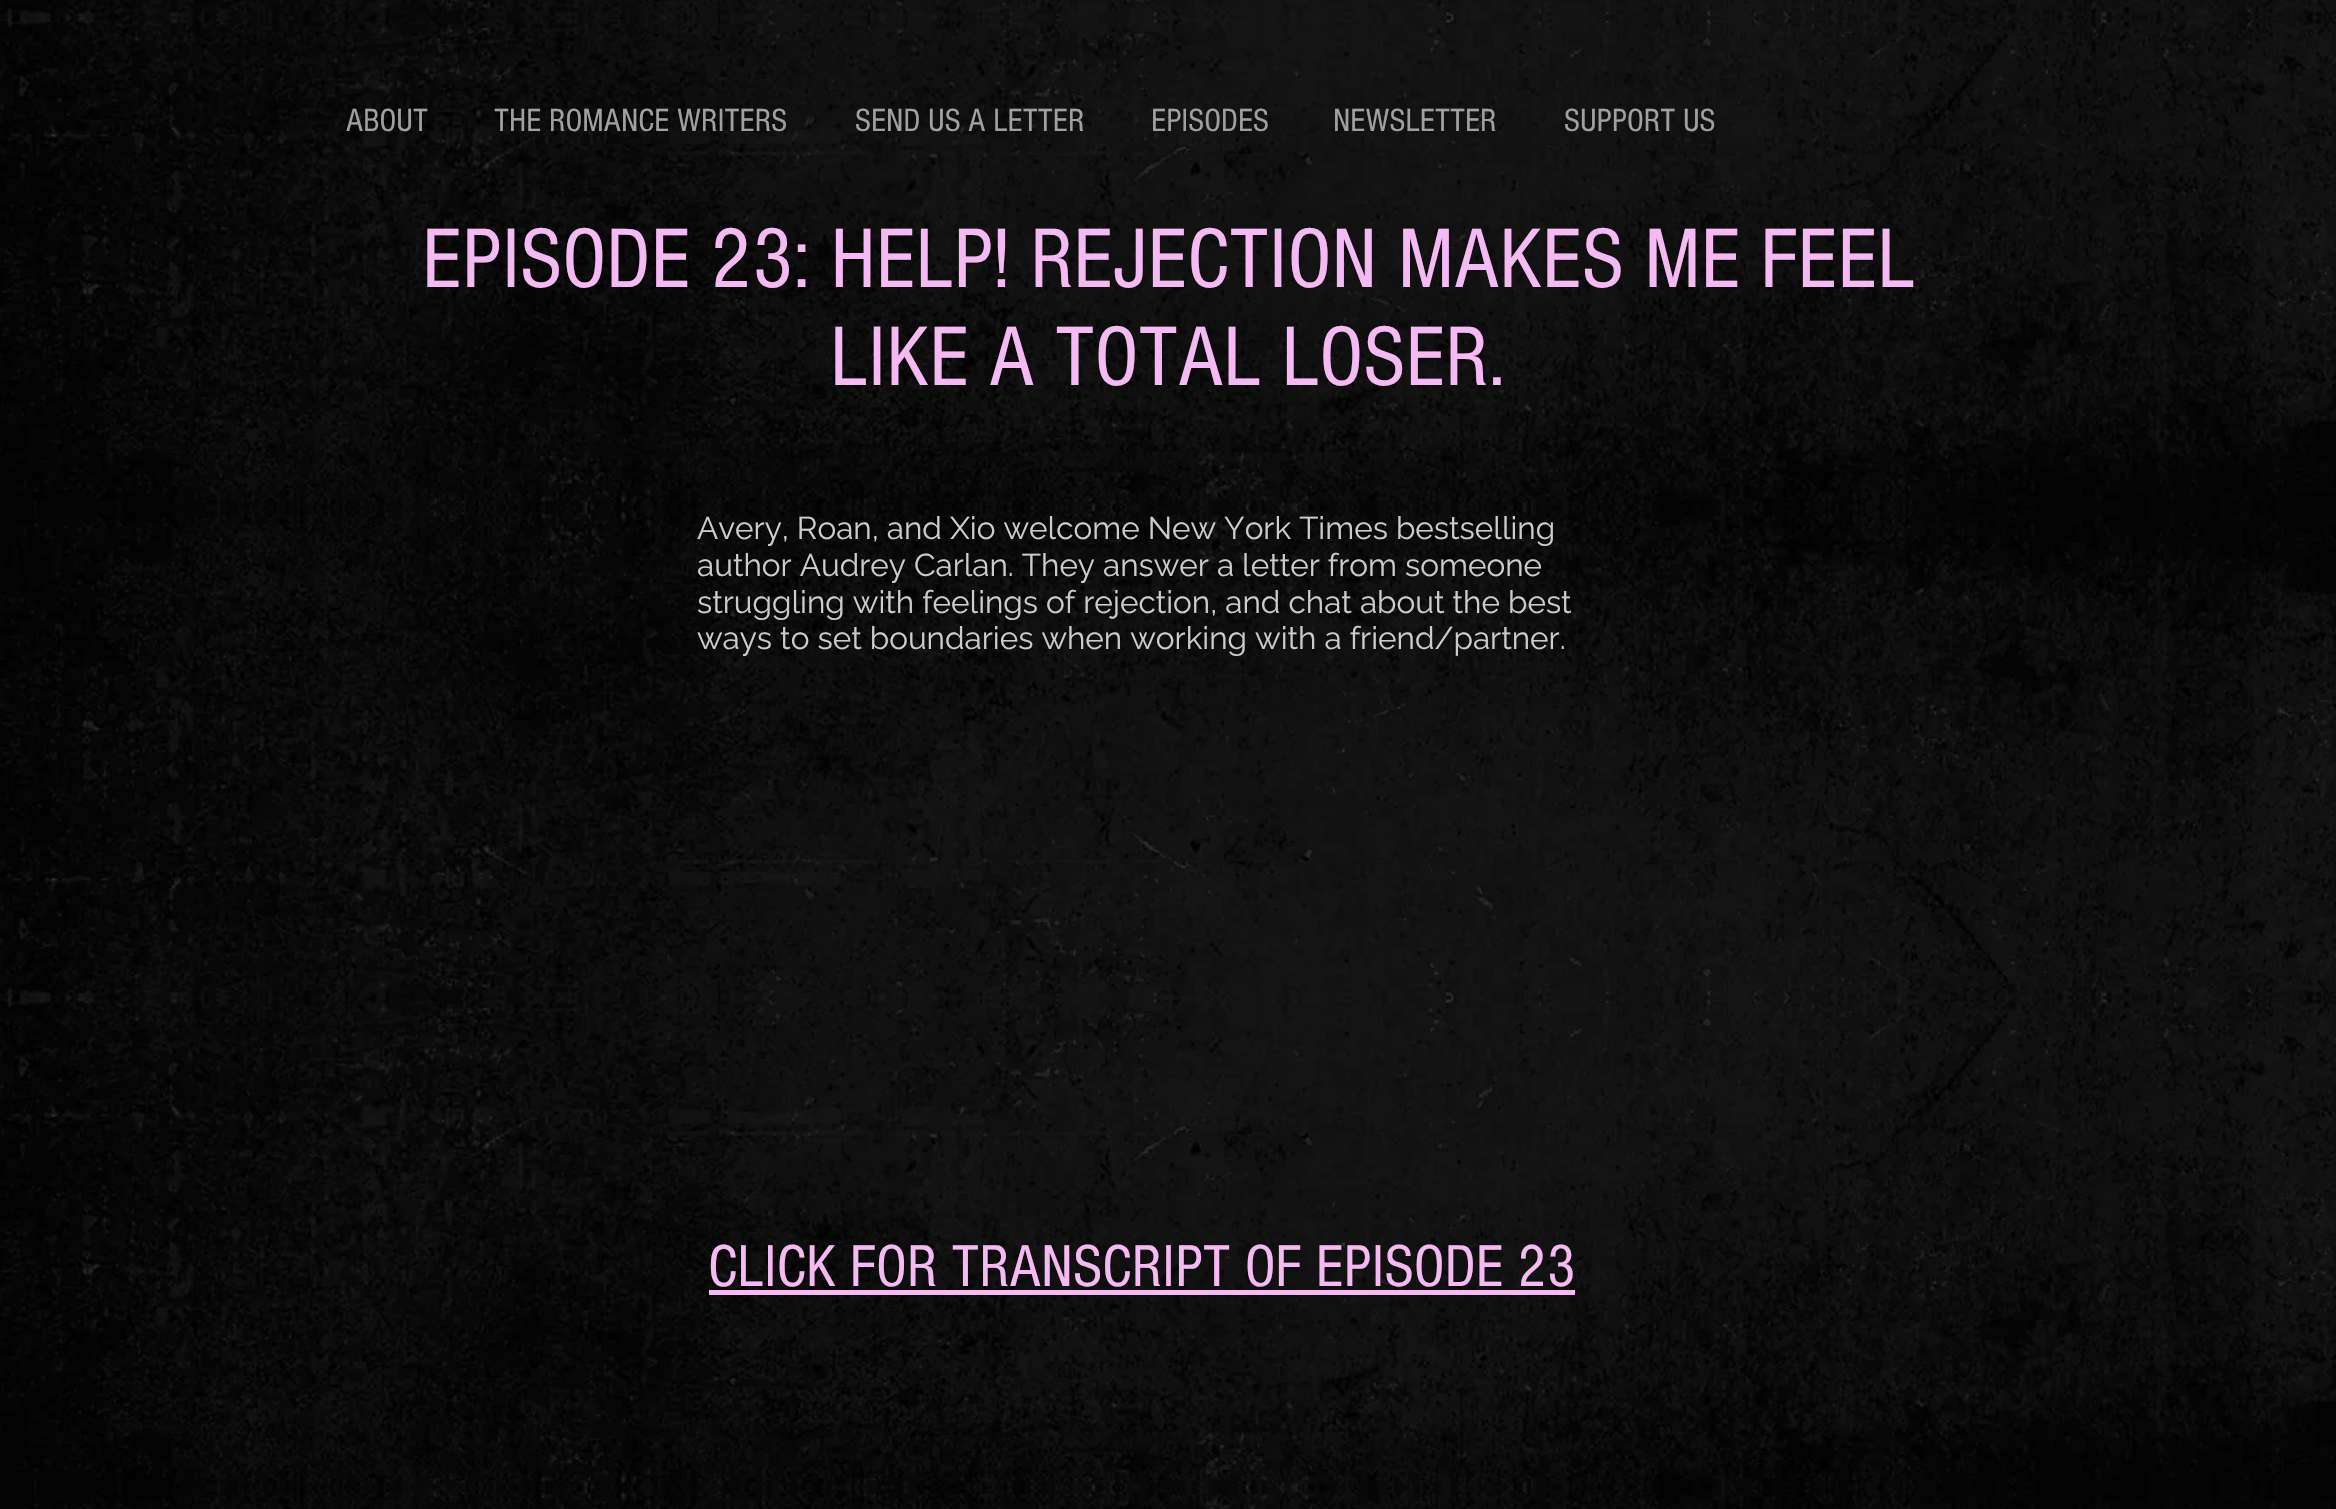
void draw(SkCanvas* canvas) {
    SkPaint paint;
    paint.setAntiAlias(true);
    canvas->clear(0xFFFFFFFF);
    canvas->drawImageRect(SkImages::DeferredFromEncodedData(SkData::MakeFromFileName("img1.png")), SkRect::MakeXYWH(0, 0, 2336, 1509), SkSamplingOptions());
    SkFont font1(fontMgr->matchFamilyStyle("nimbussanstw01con", SkFontStyle::Normal()), 33.25f);
    font1.setSubpixel(true);
    paint.setColor(0xFFA0A09F);
    canvas->drawString("ABOUT", 346, 131, font1, paint);
    canvas->drawString("THE ROMANCE WRITERS", 494, 131, font1, paint);
    canvas->drawString("SEND US A LETTER", 855, 131, font1, paint);
    canvas->drawString("EPISODES", 1151, 131, font1, paint);
    canvas->drawString("NEWSLETTER", 1333, 131, font1, paint);
    canvas->drawString("SUPPORT US", 1564, 131, font1, paint);
    SkFont font2(fontMgr->matchFamilyStyle("nimbussanstw01con", SkFontStyle::Normal()), 87.5f);
    font2.setSubpixel(true);
    paint.setColor(0xFFF5BAF3);
    canvas->drawString("EPISODE 23: HELP! REJECTION MAKES ME FEEL", 422, 287, font2, paint);
    canvas->drawString("LIKE A TOTAL LOSER.", 830, 385, font2, paint);
    SkFont font3(fontMgr->matchFamilyStyle("Raleway", SkFontStyle::Normal()), 31.5f);
    font3.setSubpixel(true);
    paint.setColor(0xFFCCCCCC);
    canvas->drawString("Avery, Roan, and Xio welcome New York Times bestselling", 697, 539, font3, paint);
    canvas->drawString("author Audrey Carlan. They answer a letter from someone", 697, 576, font3, paint);
    canvas->drawString("struggling with feelings of rejection, and chat about the best", 697, 613, font3, paint);
    canvas->drawString("ways to set boundaries when working with a friend/partner.", 697, 649, font3, paint);
    SkFont font4(fontMgr->matchFamilyStyle("nimbussanstw01con", SkFontStyle::Normal()), 61.25f);
    font4.setSubpixel(true);
    paint.setColor(0xFFF5BAF3);
    canvas->drawString("CLICK FOR TRANSCRIPT OF EPISODE 23", 708, 1286, font4, paint);
    canvas->drawRect(SkRect::MakeXYWH(709, 1290, 866, 5), paint);
}
